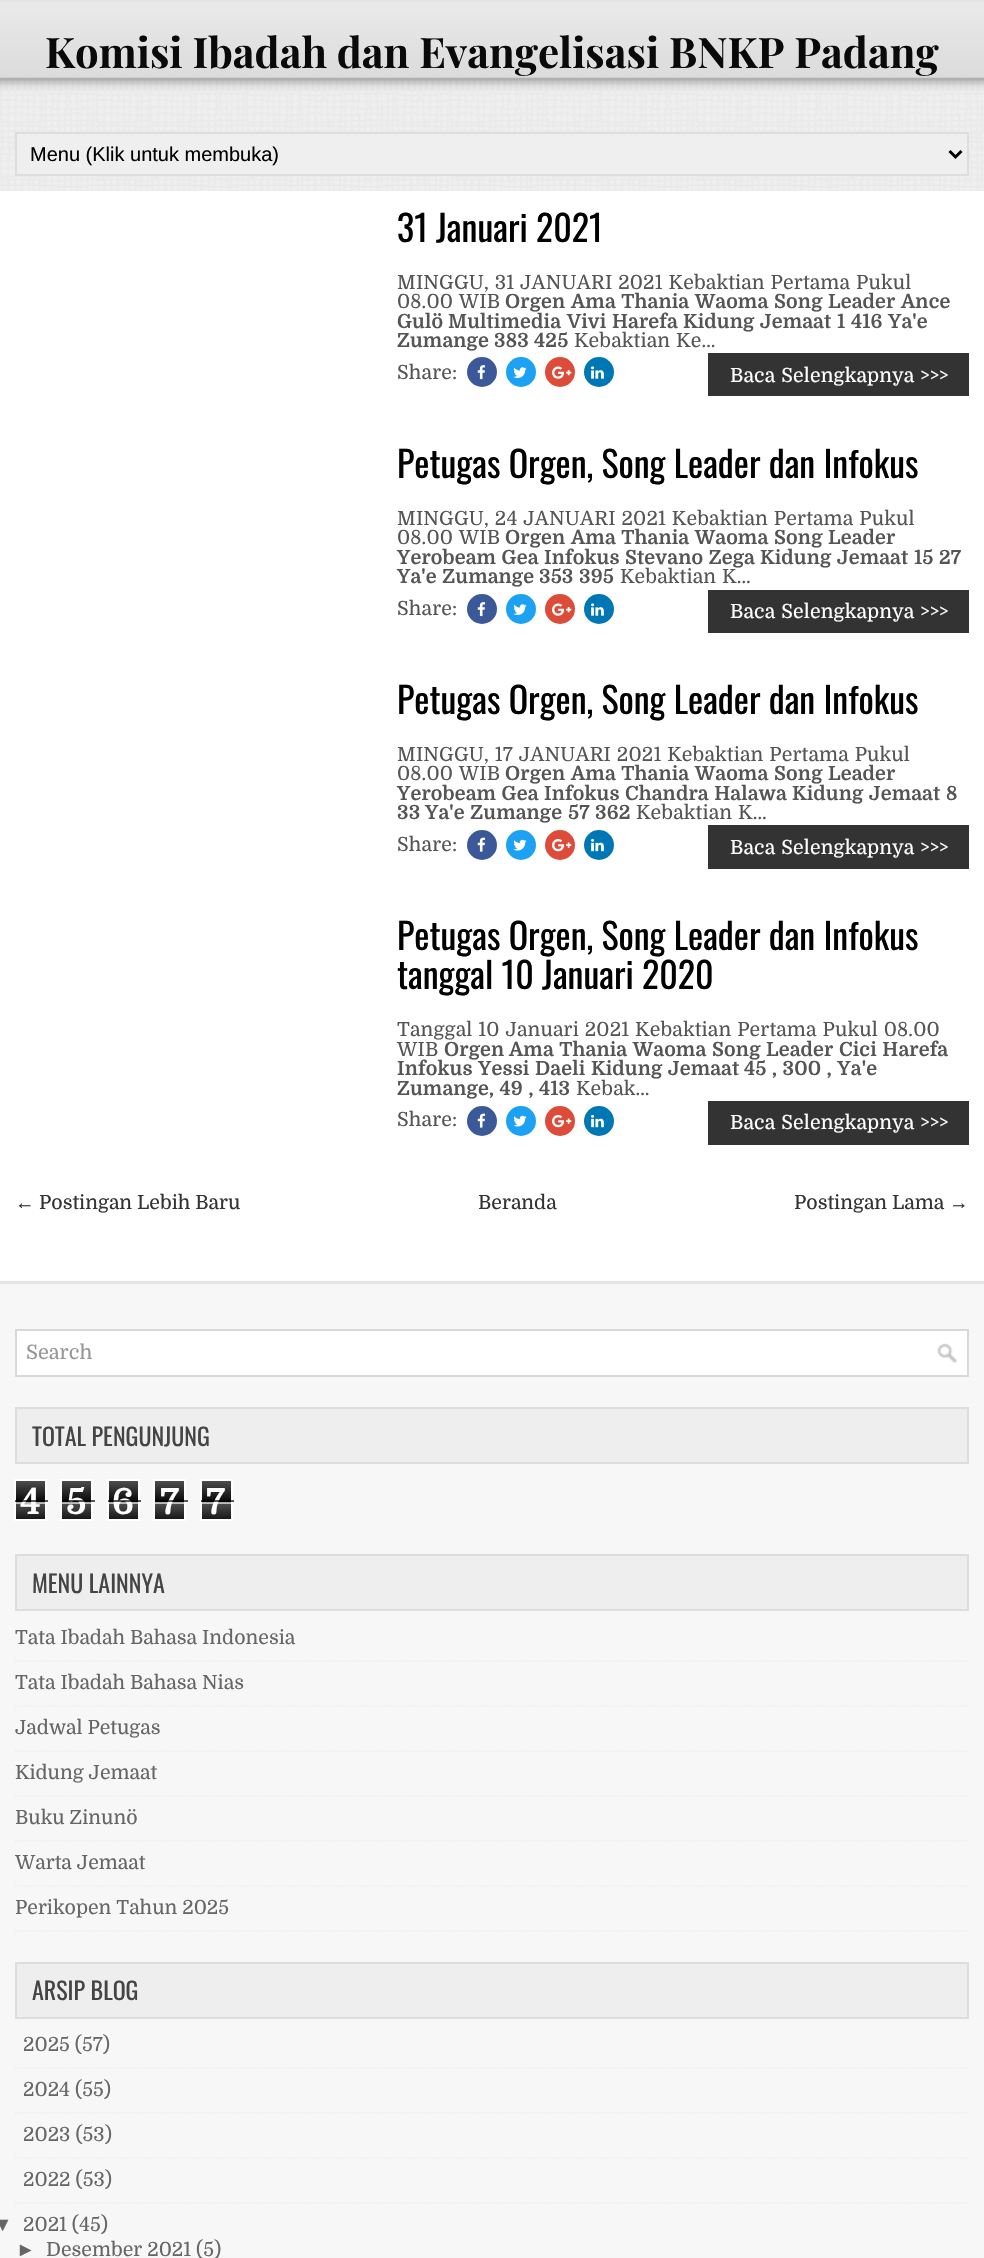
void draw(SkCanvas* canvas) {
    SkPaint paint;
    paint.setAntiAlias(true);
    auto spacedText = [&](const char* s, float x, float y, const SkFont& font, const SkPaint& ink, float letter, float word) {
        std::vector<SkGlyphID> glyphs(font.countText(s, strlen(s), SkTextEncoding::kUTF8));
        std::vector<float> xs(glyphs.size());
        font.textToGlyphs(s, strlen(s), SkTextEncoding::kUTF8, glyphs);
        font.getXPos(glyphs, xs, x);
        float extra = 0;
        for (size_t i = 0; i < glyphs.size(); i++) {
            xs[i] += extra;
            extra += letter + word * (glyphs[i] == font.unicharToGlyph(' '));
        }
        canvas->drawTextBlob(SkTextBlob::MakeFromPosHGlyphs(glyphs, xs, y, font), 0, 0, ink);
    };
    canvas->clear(0xFFFFFFFF);
    canvas->drawImageRect(SkImages::DeferredFromEncodedData(SkData::MakeFromFileName("img1.png")), SkRect::MakeXYWH(0, 0, 984, 191), SkSamplingOptions());
    SkFont font1(fontMgr->matchFamilyStyle("Playfair Display", SkFontStyle::Bold()), 42);
    font1.setSubpixel(true);
    paint.setColor(0xFF0A0A0A);
    canvas->drawString("Komisi Ibadah dan Evangelisasi BNKP Padang", 45, 68, font1, paint);
    paint.setColor(0xFFEFEFEF);
    canvas->drawRect(SkRect::MakeXYWH(16, 133, 952, 42), paint);
    paint.setStyle(SkPaint::kStroke_Style);
    paint.setStrokeWidth(2);
    paint.setColor(0xFFDDDDDD);
    canvas->drawRect(SkRect::MakeXYWH(16, 133, 952, 42), paint);
    paint.setStrokeWidth(3);
    paint.setColor(0xFF000000);
    canvas->drawPath(SkPathBuilder().moveTo(949.5f, 151).lineTo(955.5f, 157).lineTo(961.5f, 151).detach(), paint);
    SkFont font2(fontMgr->matchFamilyStyle("Liberation Sans", SkFontStyle::Normal()), 20);
    font2.setSubpixel(true);
    paint.setStyle(SkPaint::kFill_Style);
    canvas->drawString("Menu (Klik untuk membuka)", 30, 161, font2, paint);
    SkFont font3(fontMgr->matchFamilyStyle("Oswald", SkFontStyle::Normal()), 36);
    font3.setSubpixel(true);
    canvas->drawString("31 Januari 2021", 397, 242, font3, paint);
    SkFont font4(fontMgr->matchFamilyStyle("Domine", SkFontStyle::Normal()), 19.5f);
    font4.setSubpixel(true);
    paint.setColor(0xFF555555);
    spacedText("MINGGU, 31 JANUARI 2021 Kebaktian Pertama Pukul", 397, 289, font4, paint, 0.15f, 0.75f);
    spacedText("08.00 WIB", 397, 308, font4, paint, 0.15f, 0.75f);
    SkFont font5(fontMgr->matchFamilyStyle("Domine", SkFontStyle::Bold()), 19.5f);
    font5.setSubpixel(true);
    spacedText("Orgen", 505, 308, font5, paint, 0.15f, 0);
    spacedText("Ama Thania Waoma", 571, 308, font5, paint, 0.15f, 0.75f);
    spacedText("Song Leader", 774, 308, font5, paint, 0.15f, 0.75f);
    spacedText("Ance", 901, 308, font5, paint, 0.15f, 0);
    spacedText("Gulö", 397, 328, font5, paint, 0.15f, 0);
    spacedText("Multimedia", 448, 328, font5, paint, 0.15f, 0);
    spacedText("Vivi Harefa", 567, 328, font5, paint, 0.15f, 0.75f);
    spacedText("Kidung Jemaat", 683, 328, font5, paint, 0.15f, 0.75f);
    spacedText("1", 837, 328, font5, paint, 0.15f, 0);
    spacedText("416", 851, 328, font5, paint, 0.15f, 0);
    spacedText("Ya'e", 888, 328, font5, paint, 0.15f, 0);
    spacedText("Zumange", 397, 347, font5, paint, 0.15f, 0);
    spacedText("383", 494, 347, font5, paint, 0.15f, 0);
    spacedText("425", 534, 347, font5, paint, 0.15f, 0);
    spacedText("Kebaktian Ke…", 574, 347, font4, paint, 0.15f, 0.75f);
    spacedText("Share:", 397, 379, font4, paint, 0.15f, 0);
    paint.setColor(0xFF3B5998);
    canvas->drawCircle(482, 372, 15, paint);
    canvas->drawImageRect(SkImages::DeferredFromEncodedData(SkData::MakeFromFileName("img2.png")), SkRect::MakeXYWH(477, 365, 9, 15), SkSamplingOptions());
    paint.setColor(0xFF1DA1F2);
    canvas->drawCircle(521, 372, 15, paint);
    canvas->drawImageRect(SkImages::DeferredFromEncodedData(SkData::MakeFromFileName("img3.png")), SkRect::MakeXYWH(513, 367, 14, 11), SkSamplingOptions());
    paint.setColor(0xFFDD4B39);
    canvas->drawCircle(560, 372, 15, paint);
    canvas->drawImageRect(SkImages::DeferredFromEncodedData(SkData::MakeFromFileName("img4.png")), SkRect::MakeXYWH(552, 366, 20, 13), SkSamplingOptions());
    paint.setColor(0xFF0077B5);
    canvas->drawCircle(599, 372, 15, paint);
    canvas->drawImageRect(SkImages::DeferredFromEncodedData(SkData::MakeFromFileName("img5.png")), SkRect::MakeXYWH(591, 366, 13, 13), SkSamplingOptions());
    paint.setColor(0xFF333333);
    canvas->drawRect(SkRect::MakeXYWH(708, 353, 261, 43), paint);
    paint.setColor(0xFFFFFFFF);
    spacedText("Baca Selengkapnya >>>", 730, 382, font4, paint, 0.15f, 0.75f);
    paint.setColor(0xFF000000);
    canvas->drawString("Petugas Orgen, Song Leader dan Infokus", 397, 478, font3, paint);
    paint.setColor(0xFF555555);
    spacedText("MINGGU, 24 JANUARI 2021 Kebaktian Pertama Pukul", 397, 525, font4, paint, 0.15f, 0.75f);
    spacedText("08.00 WIB", 397, 544, font4, paint, 0.15f, 0.75f);
    spacedText("Orgen", 505, 544, font5, paint, 0.15f, 0);
    spacedText("Ama Thania Waoma", 571, 544, font5, paint, 0.15f, 0.75f);
    spacedText("Song Leader", 774, 544, font5, paint, 0.15f, 0.75f);
    spacedText("Yerobeam Gea", 397, 564, font5, paint, 0.15f, 0.75f);
    spacedText("Infokus", 544, 564, font5, paint, 0.15f, 0);
    spacedText("Stevano Zega", 625, 564, font5, paint, 0.15f, 0.75f);
    spacedText("Kidung Jemaat", 760, 564, font5, paint, 0.15f, 0.75f);
    spacedText("15", 914, 564, font5, paint, 0.15f, 0);
    spacedText("27", 939, 564, font5, paint, 0.15f, 0);
    spacedText("Ya'e Zumange", 397, 583, font5, paint, 0.15f, 0.75f);
    spacedText("353", 539, 583, font5, paint, 0.15f, 0);
    spacedText("395", 579, 583, font5, paint, 0.15f, 0);
    spacedText("Kebaktian K…", 620, 583, font4, paint, 0.15f, 0.75f);
    spacedText("Share:", 397, 615, font4, paint, 0.15f, 0);
    paint.setColor(0xFF3B5998);
    canvas->drawCircle(482, 609, 15, paint);
    canvas->drawImageRect(SkImages::DeferredFromEncodedData(SkData::MakeFromFileName("img2.png")), SkRect::MakeXYWH(477, 602, 9, 15), SkSamplingOptions());
    paint.setColor(0xFF1DA1F2);
    canvas->drawCircle(521, 609, 15, paint);
    canvas->drawImageRect(SkImages::DeferredFromEncodedData(SkData::MakeFromFileName("img3.png")), SkRect::MakeXYWH(513, 604, 14, 11), SkSamplingOptions());
    paint.setColor(0xFFDD4B39);
    canvas->drawCircle(560, 609, 15, paint);
    canvas->drawImageRect(SkImages::DeferredFromEncodedData(SkData::MakeFromFileName("img4.png")), SkRect::MakeXYWH(552, 603, 20, 13), SkSamplingOptions());
    paint.setColor(0xFF0077B5);
    canvas->drawCircle(599, 609, 15, paint);
    canvas->drawImageRect(SkImages::DeferredFromEncodedData(SkData::MakeFromFileName("img5.png")), SkRect::MakeXYWH(591, 603, 13, 13), SkSamplingOptions());
    paint.setColor(0xFF333333);
    canvas->drawRect(SkRect::MakeXYWH(708, 590, 261, 43), paint);
    paint.setColor(0xFFFFFFFF);
    spacedText("Baca Selengkapnya >>>", 730, 618, font4, paint, 0.15f, 0.75f);
    paint.setColor(0xFF000000);
    canvas->drawString("Petugas Orgen, Song Leader dan Infokus", 397, 714, font3, paint);
    paint.setColor(0xFF555555);
    spacedText("MINGGU, 17 JANUARI 2021 Kebaktian Pertama Pukul", 397, 761, font4, paint, 0.15f, 0.75f);
    spacedText("08.00 WIB", 397, 780, font4, paint, 0.15f, 0.75f);
    spacedText("Orgen", 505, 780, font5, paint, 0.15f, 0);
    spacedText("Ama Thania Waoma", 571, 780, font5, paint, 0.15f, 0.75f);
    spacedText("Song Leader", 774, 780, font5, paint, 0.15f, 0.75f);
    spacedText("Yerobeam Gea", 397, 800, font5, paint, 0.15f, 0.75f);
    spacedText("Infokus", 544, 800, font5, paint, 0.15f, 0);
    spacedText("Chandra Halawa", 625, 800, font5, paint, 0.15f, 0.75f);
    spacedText("Kidung Jemaat", 792, 800, font5, paint, 0.15f, 0.75f);
    spacedText("8", 946, 800, font5, paint, 0.15f, 0);
    spacedText("33", 397, 819, font5, paint, 0.15f, 0);
    spacedText("Ya'e Zumange", 425, 819, font5, paint, 0.15f, 0.75f);
    spacedText("57", 568, 819, font5, paint, 0.15f, 0);
    spacedText("362", 595, 819, font5, paint, 0.15f, 0);
    spacedText("Kebaktian K…", 636, 819, font4, paint, 0.15f, 0.75f);
    spacedText("Share:", 397, 851, font4, paint, 0.15f, 0);
    paint.setColor(0xFF3B5998);
    canvas->drawCircle(482, 845, 15, paint);
    canvas->drawImageRect(SkImages::DeferredFromEncodedData(SkData::MakeFromFileName("img6.png")), SkRect::MakeXYWH(477, 837, 9, 15), SkSamplingOptions());
    paint.setColor(0xFF1DA1F2);
    canvas->drawCircle(521, 845, 15, paint);
    canvas->drawImageRect(SkImages::DeferredFromEncodedData(SkData::MakeFromFileName("img7.png")), SkRect::MakeXYWH(513, 839, 14, 12), SkSamplingOptions());
    paint.setColor(0xFFDD4B39);
    canvas->drawCircle(560, 845, 15, paint);
    canvas->drawImageRect(SkImages::DeferredFromEncodedData(SkData::MakeFromFileName("img8.png")), SkRect::MakeXYWH(552, 839, 20, 13), SkSamplingOptions());
    paint.setColor(0xFF0077B5);
    canvas->drawCircle(599, 845, 15, paint);
    canvas->drawImageRect(SkImages::DeferredFromEncodedData(SkData::MakeFromFileName("img9.png")), SkRect::MakeXYWH(591, 838, 13, 14), SkSamplingOptions());
    paint.setColor(0xFF333333);
    canvas->drawRect(SkRect::MakeXYWH(708, 825, 261, 44), paint);
    paint.setColor(0xFFFFFFFF);
    spacedText("Baca Selengkapnya >>>", 730, 854, font4, paint, 0.15f, 0.75f);
    paint.setColor(0xFF000000);
    canvas->drawString("Petugas Orgen, Song Leader dan Infokus", 397, 950, font3, paint);
    canvas->drawString("tanggal 10 Januari 2020", 397, 989, font3, paint);
    paint.setColor(0xFF555555);
    spacedText("Tanggal 10 Januari 2021 Kebaktian Pertama Pukul 08.00", 397, 1036, font4, paint, 0.15f, 0.75f);
    spacedText("WIB", 397, 1056, font4, paint, 0.15f, 0);
    spacedText("Orgen", 444, 1056, font5, paint, 0.15f, 0);
    spacedText("Ama Thania Waoma", 509, 1056, font5, paint, 0.15f, 0.75f);
    spacedText("Song Leader", 712, 1056, font5, paint, 0.15f, 0.75f);
    spacedText("Cici Harefa", 839, 1056, font5, paint, 0.15f, 0.75f);
    spacedText("Infokus", 397, 1075, font5, paint, 0.15f, 0);
    spacedText("Yessi Daeli", 478, 1075, font5, paint, 0.15f, 0.75f);
    spacedText("Kidung Jemaat", 591, 1075, font5, paint, 0.15f, 0.75f);
    spacedText("45 , 300 , Ya'e", 744, 1075, font5, paint, 0.15f, 0.75f);
    spacedText("Zumange, 49 , 413", 397, 1095, font5, paint, 0.15f, 0.75f);
    spacedText("Kebak…", 576, 1095, font4, paint, 0.15f, 0);
    spacedText("Share:", 397, 1126, font4, paint, 0.15f, 0);
    paint.setColor(0xFF3B5998);
    canvas->drawCircle(482, 1121, 15, paint);
    canvas->drawImageRect(SkImages::DeferredFromEncodedData(SkData::MakeFromFileName("img6.png")), SkRect::MakeXYWH(477, 1113, 9, 15), SkSamplingOptions());
    paint.setColor(0xFF1DA1F2);
    canvas->drawCircle(521, 1121, 15, paint);
    canvas->drawImageRect(SkImages::DeferredFromEncodedData(SkData::MakeFromFileName("img7.png")), SkRect::MakeXYWH(513, 1115, 14, 12), SkSamplingOptions());
    paint.setColor(0xFFDD4B39);
    canvas->drawCircle(560, 1121, 15, paint);
    canvas->drawImageRect(SkImages::DeferredFromEncodedData(SkData::MakeFromFileName("img8.png")), SkRect::MakeXYWH(552, 1115, 20, 13), SkSamplingOptions());
    paint.setColor(0xFF0077B5);
    canvas->drawCircle(599, 1121, 15, paint);
    canvas->drawImageRect(SkImages::DeferredFromEncodedData(SkData::MakeFromFileName("img9.png")), SkRect::MakeXYWH(591, 1114, 13, 14), SkSamplingOptions());
    paint.setColor(0xFF333333);
    canvas->drawRect(SkRect::MakeXYWH(708, 1101, 261, 44), paint);
    paint.setColor(0xFFFFFFFF);
    spacedText("Baca Selengkapnya >>>", 730, 1129, font4, paint, 0.15f, 0.75f);
    SkFont font6(fontMgr->matchFamilyStyle("Liberation Sans", SkFontStyle::Normal()), 19.5f);
    font6.setSubpixel(true);
    paint.setColor(0xFF333333);
    canvas->drawString("←", 15, 1209, font6, paint);
    canvas->drawString("Postingan Lebih Baru", 39, 1209, font4, paint);
    canvas->drawString("Beranda", 478, 1209, font4, paint);
    canvas->drawString("Postingan Lama", 794, 1209, font4, paint);
    canvas->drawString("→", 949, 1209, font6, paint);
    paint.setColor(0xFFF7F7F7);
    canvas->drawRect(SkRect::MakeXYWH(0, 1284, 984, 974), paint);
    paint.setColor(0xFFE4E4E4);
    canvas->drawRect(SkRect::MakeXYWH(0, 1281, 984, 3), paint);
    paint.setColor(0xFFFFFFFF);
    canvas->drawRect(SkRect::MakeXYWH(17, 1331, 950, 44), paint);
    canvas->drawImageRect(SkImages::DeferredFromEncodedData(SkData::MakeFromFileName("img10.png")), SkRect::MakeXYWH(937, 1343, 21, 21), SkSamplingOptions());
    paint.setStyle(SkPaint::kStroke_Style);
    paint.setStrokeWidth(2);
    paint.setColor(0xFFD8D8D8);
    canvas->drawRect(SkRect::MakeXYWH(16, 1330, 952, 46), paint);
    SkFont font7(fontMgr->matchFamilyStyle("Domine", SkFontStyle::Normal()), 20);
    font7.setSubpixel(true);
    paint.setStyle(SkPaint::kFill_Style);
    paint.setColor(0xFF979797);
    canvas->drawString("Search", 26, 1359, font7, paint);
    paint.setColor(0xFFEEEEEE);
    canvas->drawRect(SkRect::MakeXYWH(16, 1408, 952, 55), paint);
    paint.setStyle(SkPaint::kStroke_Style);
    paint.setColor(0xFFDDDDDD);
    canvas->drawRect(SkRect::MakeXYWH(16, 1408, 952, 55), paint);
    SkFont font8(fontMgr->matchFamilyStyle("Oswald", SkFontStyle::Normal()), 24);
    font8.setSubpixel(true);
    paint.setStyle(SkPaint::kFill_Style);
    paint.setColor(0xFF444444);
    canvas->drawString("TOTAL PENGUNJUNG", 32, 1446, font8, paint);
    canvas->drawImageRect(SkImages::DeferredFromEncodedData(SkData::MakeFromFileName("img11.png")), SkRect::MakeXYWH(16, 1481, 29, 38), SkSamplingOptions());
    paint.setStyle(SkPaint::kStroke_Style);
    paint.setColor(0xFFFFFFFF);
    canvas->drawRect(SkRect::MakeXYWH(15, 1480, 31, 40), paint);
    SkFont font9(fontMgr->matchFamilyStyle("Domine", SkFontStyle::Bold()), 36);
    font9.setSubpixel(true);
    paint.setStyle(SkPaint::kFill_Style);
    canvas->drawString("4", 20, 1514, font9, paint);
    paint.setColor(0xA6000000);
    canvas->drawRect(SkRect::MakeXYWH(15, 1500, 33, 2), paint);
    paint.setColor(0xA6FFFFFF);
    canvas->drawRect(SkRect::MakeXYWH(15, 1502, 33, 2), paint);
    canvas->drawImageRect(SkImages::DeferredFromEncodedData(SkData::MakeFromFileName("img11.png")), SkRect::MakeXYWH(62, 1481, 29, 38), SkSamplingOptions());
    paint.setStyle(SkPaint::kStroke_Style);
    paint.setColor(0xFFFFFFFF);
    canvas->drawRect(SkRect::MakeXYWH(61, 1480, 31, 40), paint);
    paint.setStyle(SkPaint::kFill_Style);
    canvas->drawString("5", 66, 1514, font9, paint);
    paint.setColor(0xA6000000);
    canvas->drawRect(SkRect::MakeXYWH(62, 1500, 33, 2), paint);
    paint.setColor(0xA6FFFFFF);
    canvas->drawRect(SkRect::MakeXYWH(62, 1502, 33, 2), paint);
    canvas->drawImageRect(SkImages::DeferredFromEncodedData(SkData::MakeFromFileName("img11.png")), SkRect::MakeXYWH(109, 1481, 29, 38), SkSamplingOptions());
    paint.setStyle(SkPaint::kStroke_Style);
    paint.setColor(0xFFFFFFFF);
    canvas->drawRect(SkRect::MakeXYWH(108, 1480, 31, 40), paint);
    paint.setStyle(SkPaint::kFill_Style);
    canvas->drawString("6", 112, 1514, font9, paint);
    paint.setColor(0xA6000000);
    canvas->drawRect(SkRect::MakeXYWH(108, 1500, 33, 2), paint);
    paint.setColor(0xA6FFFFFF);
    canvas->drawRect(SkRect::MakeXYWH(108, 1502, 33, 2), paint);
    canvas->drawImageRect(SkImages::DeferredFromEncodedData(SkData::MakeFromFileName("img11.png")), SkRect::MakeXYWH(155, 1481, 29, 38), SkSamplingOptions());
    paint.setStyle(SkPaint::kStroke_Style);
    paint.setColor(0xFFFFFFFF);
    canvas->drawRect(SkRect::MakeXYWH(154, 1480, 31, 40), paint);
    paint.setStyle(SkPaint::kFill_Style);
    canvas->drawString("7", 160, 1514, font9, paint);
    paint.setColor(0xA6000000);
    canvas->drawRect(SkRect::MakeXYWH(155, 1500, 33, 2), paint);
    paint.setColor(0xA6FFFFFF);
    canvas->drawRect(SkRect::MakeXYWH(155, 1502, 33, 2), paint);
    canvas->drawImageRect(SkImages::DeferredFromEncodedData(SkData::MakeFromFileName("img11.png")), SkRect::MakeXYWH(202, 1481, 29, 38), SkSamplingOptions());
    paint.setStyle(SkPaint::kStroke_Style);
    paint.setColor(0xFFFFFFFF);
    canvas->drawRect(SkRect::MakeXYWH(201, 1480, 31, 40), paint);
    paint.setStyle(SkPaint::kFill_Style);
    canvas->drawString("7", 206, 1514, font9, paint);
    paint.setColor(0xA6000000);
    canvas->drawRect(SkRect::MakeXYWH(201, 1500, 33, 2), paint);
    paint.setColor(0xA6FFFFFF);
    canvas->drawRect(SkRect::MakeXYWH(201, 1502, 33, 2), paint);
    paint.setColor(0xFFEEEEEE);
    canvas->drawRect(SkRect::MakeXYWH(16, 1555, 952, 55), paint);
    paint.setStyle(SkPaint::kStroke_Style);
    paint.setColor(0xFFDDDDDD);
    canvas->drawRect(SkRect::MakeXYWH(16, 1555, 952, 55), paint);
    paint.setStyle(SkPaint::kFill_Style);
    paint.setColor(0xFF444444);
    canvas->drawString("MENU LAINNYA", 32, 1593, font8, paint);
    paint.setStyle(SkPaint::kStroke_Style);
    paint.setStrokeWidth(1.5f);
    paint.setColor(0xFFEEEEEE);
    paint.setPathEffect(SkDashPathEffect::Make({{1.5f, 1.5f}}, 0));
    canvas->drawPath(SkPathBuilder().moveTo(15, 1661).lineTo(969, 1661).detach(), paint);
    paint.setPathEffect(nullptr);
    paint.setStyle(SkPaint::kFill_Style);
    paint.setColor(0xFF666666);
    canvas->drawString("Tata Ibadah Bahasa Indonesia", 15, 1644, font4, paint);
    paint.setStyle(SkPaint::kStroke_Style);
    paint.setColor(0xFFEEEEEE);
    paint.setPathEffect(SkDashPathEffect::Make({{1.5f, 1.5f}}, 0));
    canvas->drawPath(SkPathBuilder().moveTo(15, 1706).lineTo(969, 1706).detach(), paint);
    paint.setPathEffect(nullptr);
    paint.setStyle(SkPaint::kFill_Style);
    paint.setColor(0xFF666666);
    canvas->drawString("Tata Ibadah Bahasa Nias", 15, 1689, font4, paint);
    paint.setStyle(SkPaint::kStroke_Style);
    paint.setColor(0xFFEEEEEE);
    paint.setPathEffect(SkDashPathEffect::Make({{1.5f, 1.5f}}, 0));
    canvas->drawPath(SkPathBuilder().moveTo(15, 1751).lineTo(969, 1751).detach(), paint);
    paint.setPathEffect(nullptr);
    paint.setStyle(SkPaint::kFill_Style);
    paint.setColor(0xFF666666);
    canvas->drawString("Jadwal Petugas", 15, 1734, font4, paint);
    paint.setStyle(SkPaint::kStroke_Style);
    paint.setColor(0xFFEEEEEE);
    paint.setPathEffect(SkDashPathEffect::Make({{1.5f, 1.5f}}, 0));
    canvas->drawPath(SkPathBuilder().moveTo(15, 1796).lineTo(969, 1796).detach(), paint);
    paint.setPathEffect(nullptr);
    paint.setStyle(SkPaint::kFill_Style);
    paint.setColor(0xFF666666);
    canvas->drawString("Kidung Jemaat", 15, 1779, font4, paint);
    paint.setStyle(SkPaint::kStroke_Style);
    paint.setColor(0xFFEEEEEE);
    paint.setPathEffect(SkDashPathEffect::Make({{1.5f, 1.5f}}, 0));
    canvas->drawPath(SkPathBuilder().moveTo(15, 1841).lineTo(969, 1841).detach(), paint);
    paint.setPathEffect(nullptr);
    paint.setStyle(SkPaint::kFill_Style);
    paint.setColor(0xFF666666);
    canvas->drawString("Buku Zinunö", 15, 1824, font4, paint);
    paint.setStyle(SkPaint::kStroke_Style);
    paint.setColor(0xFFEEEEEE);
    paint.setPathEffect(SkDashPathEffect::Make({{1.5f, 1.5f}}, 0));
    canvas->drawPath(SkPathBuilder().moveTo(15, 1886).lineTo(969, 1886).detach(), paint);
    paint.setPathEffect(nullptr);
    paint.setStyle(SkPaint::kFill_Style);
    paint.setColor(0xFF666666);
    canvas->drawString("Warta Jemaat", 15, 1869, font4, paint);
    paint.setStyle(SkPaint::kStroke_Style);
    paint.setColor(0xFFEEEEEE);
    paint.setPathEffect(SkDashPathEffect::Make({{1.5f, 1.5f}}, 0));
    canvas->drawPath(SkPathBuilder().moveTo(15, 1931).lineTo(969, 1931).detach(), paint);
    paint.setPathEffect(nullptr);
    paint.setStyle(SkPaint::kFill_Style);
    paint.setColor(0xFF666666);
    canvas->drawString("Perikopen Tahun 2025", 15, 1914, font4, paint);
    paint.setColor(0xFFEEEEEE);
    canvas->drawRect(SkRect::MakeXYWH(16, 1963, 952, 55), paint);
    paint.setStyle(SkPaint::kStroke_Style);
    paint.setStrokeWidth(2);
    paint.setColor(0xFFDDDDDD);
    canvas->drawRect(SkRect::MakeXYWH(16, 1963, 952, 55), paint);
    paint.setStyle(SkPaint::kFill_Style);
    paint.setColor(0xFF444444);
    canvas->drawString("ARSIP BLOG", 32, 2000, font8, paint);
    paint.setStyle(SkPaint::kStroke_Style);
    paint.setStrokeWidth(1.5f);
    paint.setColor(0xFFEEEEEE);
    paint.setPathEffect(SkDashPathEffect::Make({{1.5f, 1.5f}}, 0));
    canvas->drawPath(SkPathBuilder().moveTo(15, 2068).lineTo(969, 2068).detach(), paint);
    paint.setPathEffect(nullptr);
    paint.setStyle(SkPaint::kFill_Style);
    paint.setColor(0xFF666666);
    canvas->drawString("2025 (57)", 23, 2051, font4, paint);
    paint.setStyle(SkPaint::kStroke_Style);
    paint.setColor(0xFFEEEEEE);
    paint.setPathEffect(SkDashPathEffect::Make({{1.5f, 1.5f}}, 0));
    canvas->drawPath(SkPathBuilder().moveTo(15, 2113).lineTo(969, 2113).detach(), paint);
    paint.setPathEffect(nullptr);
    paint.setStyle(SkPaint::kFill_Style);
    paint.setColor(0xFF666666);
    canvas->drawString("2024 (55)", 23, 2096, font4, paint);
    paint.setStyle(SkPaint::kStroke_Style);
    paint.setColor(0xFFEEEEEE);
    paint.setPathEffect(SkDashPathEffect::Make({{1.5f, 1.5f}}, 0));
    canvas->drawPath(SkPathBuilder().moveTo(15, 2158).lineTo(969, 2158).detach(), paint);
    paint.setPathEffect(nullptr);
    paint.setStyle(SkPaint::kFill_Style);
    paint.setColor(0xFF666666);
    canvas->drawString("2023 (53)", 23, 2141, font4, paint);
    paint.setStyle(SkPaint::kStroke_Style);
    paint.setColor(0xFFEEEEEE);
    paint.setPathEffect(SkDashPathEffect::Make({{1.5f, 1.5f}}, 0));
    canvas->drawPath(SkPathBuilder().moveTo(15, 2203).lineTo(969, 2203).detach(), paint);
    paint.setPathEffect(nullptr);
    paint.setStyle(SkPaint::kFill_Style);
    paint.setColor(0xFF666666);
    canvas->drawString("2022 (53)", 23, 2186, font4, paint);
    canvas->drawString("▼", -7, 2231, font6, paint);
    canvas->drawString("2021 (45)", 23, 2231, font4, paint);
    canvas->drawString("►", 16, 2256, font6, paint);
    canvas->drawString("Desember 2021 (5)", 46, 2256, font4, paint);
}
